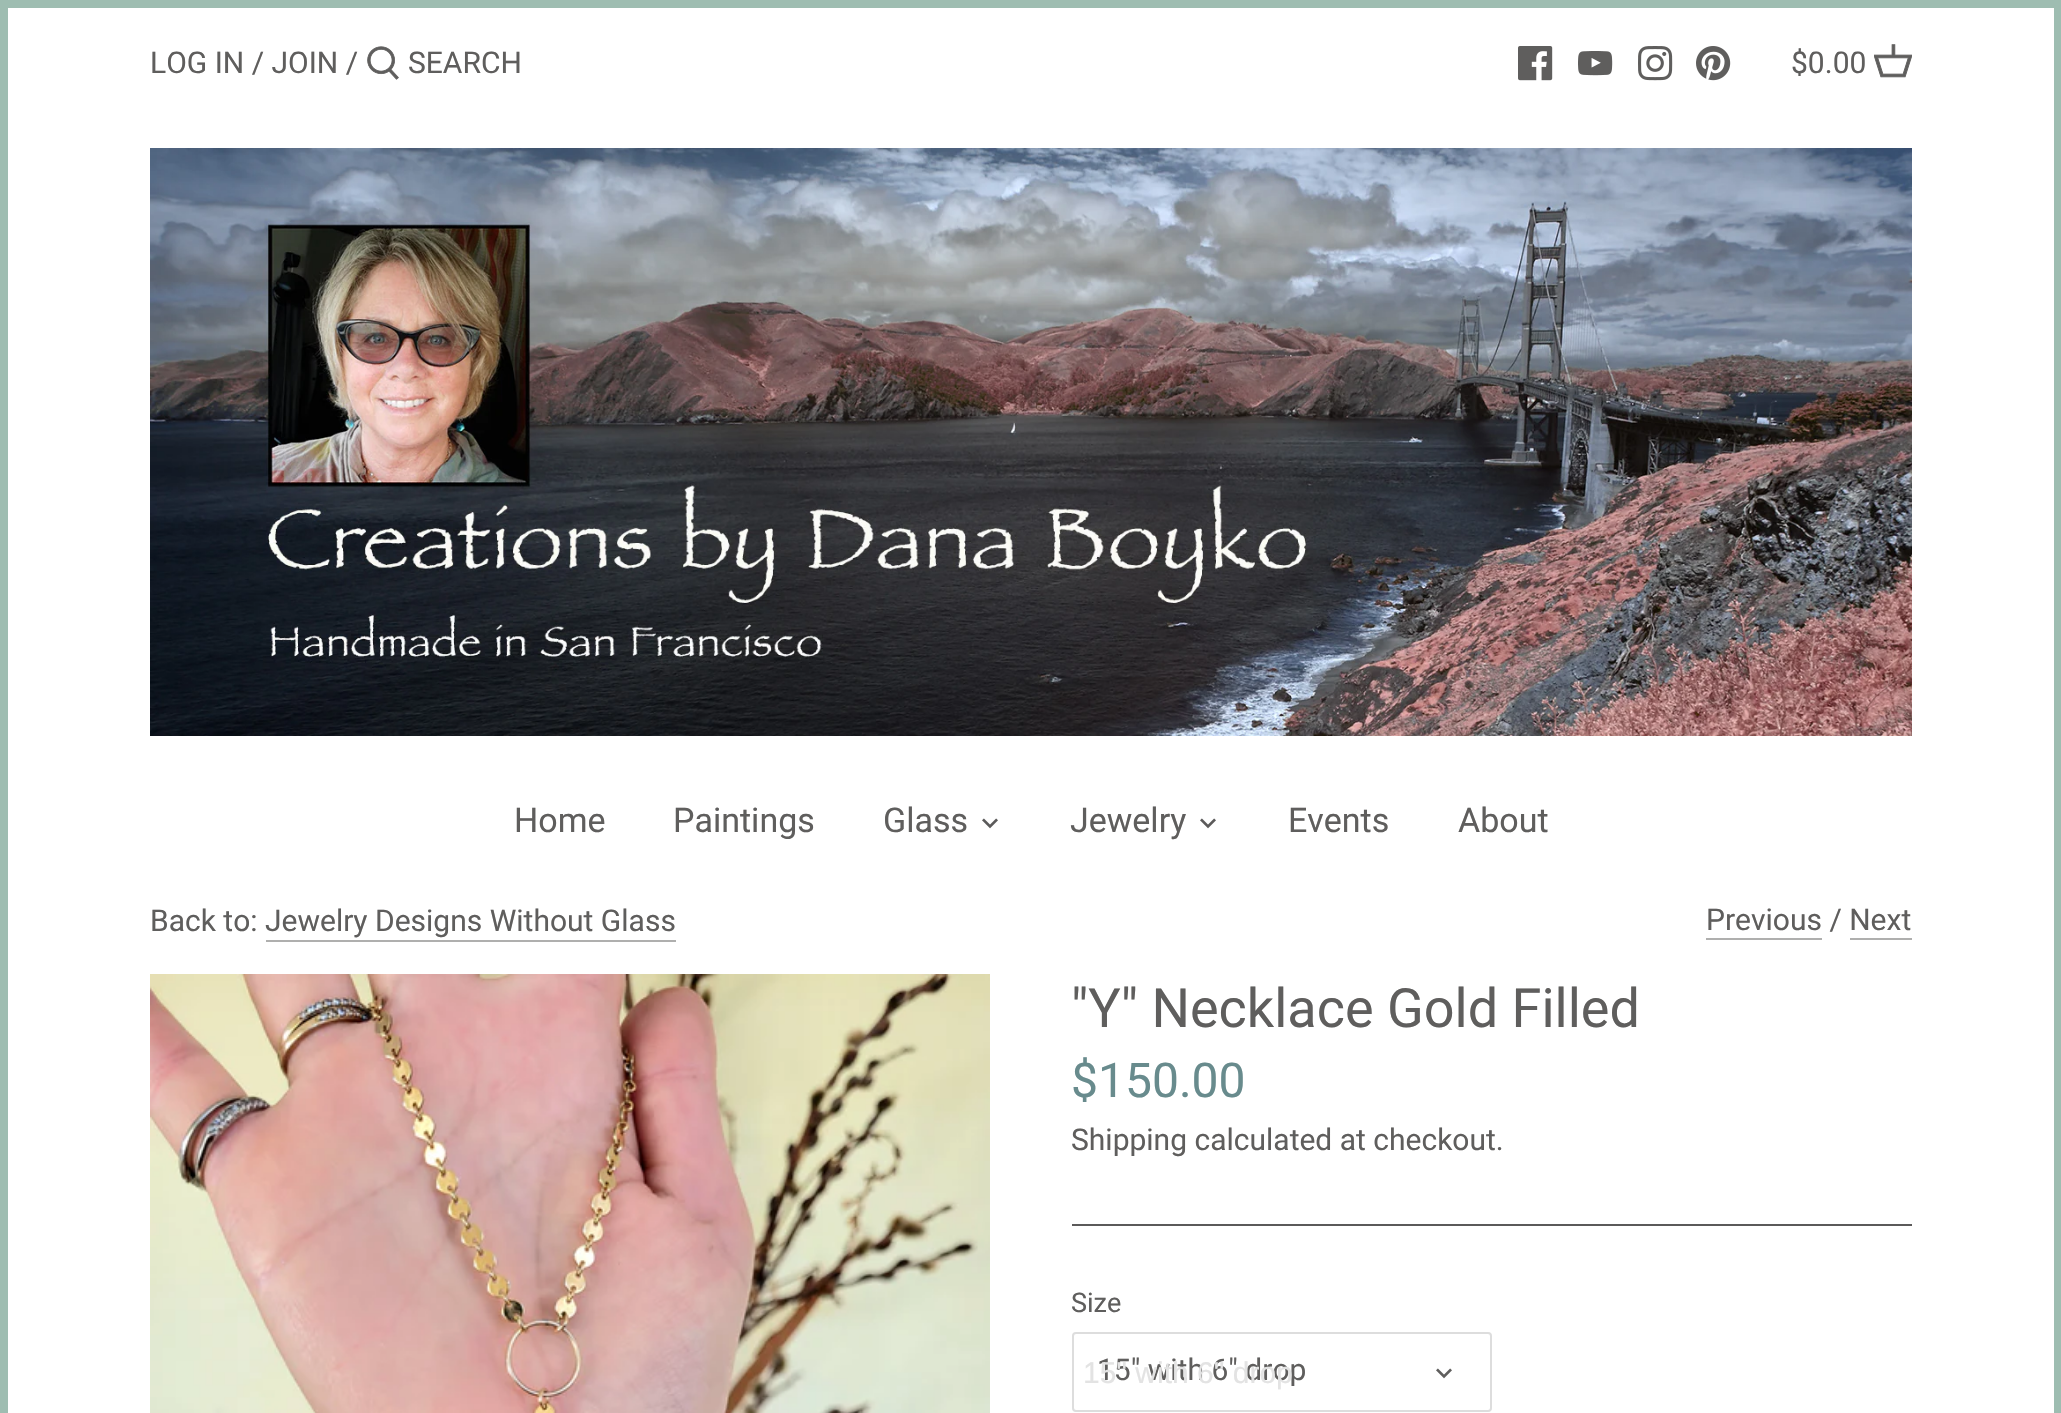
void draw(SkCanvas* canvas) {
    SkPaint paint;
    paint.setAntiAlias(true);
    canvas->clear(0xFFFFFFFF);
    paint.setStyle(SkPaint::kStroke_Style);
    paint.setStrokeWidth(8);
    paint.setColor(0xFF9EBDB1);
    canvas->drawRect(SkRect::MakeXYWH(4, 4, 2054, 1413), paint);
    SkFont font1(fontMgr->matchFamilyStyle("Roboto", SkFontStyle::Normal()), 30);
    font1.setSubpixel(true);
    paint.setStyle(SkPaint::kFill_Style);
    paint.setColor(0xFF5F5E5D);
    canvas->drawString("LOG IN / JOIN /", 150, 73, font1, paint);
    canvas->drawImageRect(SkImages::DeferredFromEncodedData(SkData::MakeFromFileName("img1.png")), SkRect::MakeXYWH(367, 46, 32, 34), SkSamplingOptions());
    canvas->drawString("SEARCH", 408, 73, font1, paint);
    canvas->drawImageRect(SkImages::DeferredFromEncodedData(SkData::MakeFromFileName("img2.png")), SkRect::MakeXYWH(1518, 46, 35, 35), SkSamplingOptions());
    canvas->drawImageRect(SkImages::DeferredFromEncodedData(SkData::MakeFromFileName("img3.png")), SkRect::MakeXYWH(1578, 51, 35, 25), SkSamplingOptions());
    canvas->drawImageRect(SkImages::DeferredFromEncodedData(SkData::MakeFromFileName("img4.png")), SkRect::MakeXYWH(1638, 46, 35, 35), SkSamplingOptions());
    canvas->drawImageRect(SkImages::DeferredFromEncodedData(SkData::MakeFromFileName("img5.png")), SkRect::MakeXYWH(1696, 46, 35, 35), SkSamplingOptions());
    canvas->drawString("$0.00", 1791, 73, font1, paint);
    canvas->drawImageRect(SkImages::DeferredFromEncodedData(SkData::MakeFromFileName("img6.png")), SkRect::MakeXYWH(1874, 44, 38, 34), SkSamplingOptions());
    canvas->drawImageRect(SkImages::DeferredFromEncodedData(SkData::MakeFromFileName("img7.png")), SkRect::MakeXYWH(150, 148, 1762, 588), SkSamplingOptions());
    SkFont font2(fontMgr->matchFamilyStyle("Roboto", SkFontStyle::Normal()), 34);
    font2.setSubpixel(true);
    canvas->drawString("Home", 514, 832, font2, paint);
    canvas->drawString("Paintings", 673, 832, font2, paint);
    canvas->drawString("Glass", 883, 832, font2, paint);
    canvas->drawImageRect(SkImages::DeferredFromEncodedData(SkData::MakeFromFileName("img8.png")), SkRect::MakeXYWH(982, 818, 16, 11), SkSamplingOptions());
    canvas->drawString("Jewelry", 1070, 832, font2, paint);
    canvas->drawImageRect(SkImages::DeferredFromEncodedData(SkData::MakeFromFileName("img8.png")), SkRect::MakeXYWH(1200, 818, 16, 11), SkSamplingOptions());
    canvas->drawString("Events", 1288, 832, font2, paint);
    canvas->drawString("About", 1458, 832, font2, paint);
    canvas->drawString("Back to: Jewelry Designs Without Glass", 150, 931, font1, paint);
    paint.setColor(0xFFAFAFAE);
    canvas->drawRect(SkRect::MakeXYWH(266, 940, 410, 2), paint);
    paint.setColor(0xFF5F5E5D);
    canvas->drawString("Previous / Next", 1706, 930, font1, paint);
    paint.setColor(0xFFAFAFAE);
    canvas->drawRect(SkRect::MakeXYWH(1706, 938, 116, 2), paint);
    canvas->drawRect(SkRect::MakeXYWH(1850, 938, 62, 2), paint);
    canvas->drawImageRect(SkImages::DeferredFromEncodedData(SkData::MakeFromFileName("img9.png")), SkRect::MakeXYWH(150, 974, 840, 439), SkSamplingOptions());
    paint.setColor(0xFF5B5A5A);
    canvas->drawRect(SkRect::MakeXYWH(1072, 1224, 840, 2), paint);
    SkFont font3(fontMgr->matchFamilyStyle("Roboto", SkFontStyle::Normal()), 54);
    font3.setSubpixel(true);
    paint.setColor(0xFF5F5E5D);
    canvas->drawString("\"Y\" Necklace Gold Filled", 1071, 1027, font3, paint);
    SkFont font4(fontMgr->matchFamilyStyle("Roboto", SkFontStyle::Normal()), 48);
    font4.setSubpixel(true);
    paint.setColor(0xFF688B8D);
    canvas->drawString("$150.00", 1071, 1097, font4, paint);
    paint.setColor(0xFF5F5E5D);
    canvas->drawString("Shipping calculated at checkout.", 1071, 1150, font1, paint);
    SkFont font5(fontMgr->matchFamilyStyle("Roboto", SkFontStyle::Normal()), 27);
    font5.setSubpixel(true);
    canvas->drawString("Size", 1071, 1312, font5, paint);
    paint.setStyle(SkPaint::kStroke_Style);
    paint.setStrokeWidth(2);
    paint.setColor(0xFFDDDDDD);
    canvas->drawRoundRect(SkRect::MakeXYWH(1073, 1333, 418, 78), 3, 3, paint);
    paint.setStyle(SkPaint::kFill_Style);
    paint.setColor(0xFF5F5E5D);
    canvas->drawString("15\" with 6\" drop", 1097, 1380, font1, paint);
    SkFont font6(fontMgr->matchFamilyStyle("Liberation Sans", SkFontStyle::Normal()), 30);
    font6.setSubpixel(true);
    paint.setColor(0xFFE3E3E3);
    canvas->drawString("15\" with 6\" drop", 1083, 1383, font6, paint);
    canvas->drawImageRect(SkImages::DeferredFromEncodedData(SkData::MakeFromFileName("img10.png")), SkRect::MakeXYWH(1436, 1368, 16, 11), SkSamplingOptions());
}
